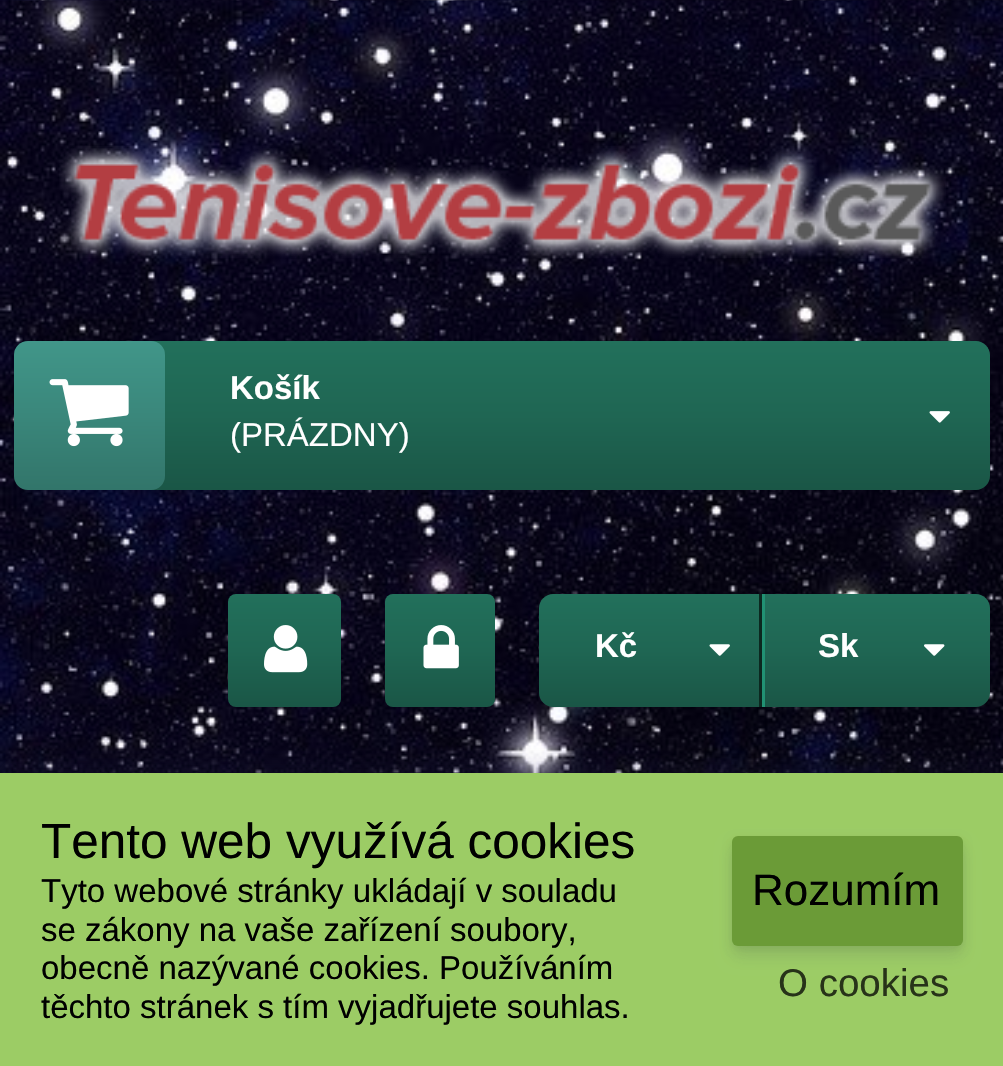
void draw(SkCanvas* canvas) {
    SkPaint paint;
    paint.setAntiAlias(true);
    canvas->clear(0xFFFFFFFF);
    canvas->drawImageRect(SkImages::DeferredFromEncodedData(SkData::MakeFromFileName("img1.png")), SkRect::MakeXYWH(0, 0, 1003, 773), SkSamplingOptions());
    canvas->drawImageRect(SkImages::DeferredFromEncodedData(SkData::MakeFromFileName("img2.png")), SkRect::MakeXYWH(59, 146, 887, 112), SkSamplingOptions());
    {
        const SkColor colors[] = {0xFF22705B, 0xFF1F6653, 0xFF1A5646};
        const float stops[] = {0, 0.5f, 1};
        const SkPoint ends[] = {{502, 341}, {502, 490}};
        paint.setShader(SkGradientShader::MakeLinear(ends, colors, stops, 3, SkTileMode::kClamp));
        paint.setAlpha(255);
    }
    canvas->drawPath(SkPathBuilder().moveTo(36, 341).lineTo(976, 341).cubicTo(983.5f, 341, 990, 347.5f, 990, 355).lineTo(990, 476).cubicTo(990, 483.5f, 983.5f, 490, 976, 490).lineTo(36, 490).cubicTo(24, 490, 14, 480, 14, 468).lineTo(14, 363).cubicTo(14, 351, 24, 341, 36, 341).close().detach(), paint);
    {
        const SkColor colors[] = {0xFF419689, 0xFF3A877B, 0xFF32756A};
        const float stops[] = {0, 0.5f, 1};
        const SkPoint ends[] = {{89, 341}, {89, 490}};
        paint.setShader(SkGradientShader::MakeLinear(ends, colors, stops, 3, SkTileMode::kClamp));
        paint.setAlpha(255);
    }
    canvas->drawRoundRect(SkRect::MakeXYWH(14, 341, 151, 149), 14, 14, paint);
    canvas->drawImageRect(SkImages::DeferredFromEncodedData(SkData::MakeFromFileName("img3.png")), SkRect::MakeXYWH(49, 379, 80, 68), SkSamplingOptions());
    SkFont font1(fontMgr->matchFamilyStyle("Liberation Sans", SkFontStyle::Bold()), 33);
    font1.setSubpixel(true);
    paint.setShader(nullptr);
    paint.setColor(0xFFFFFFFF);
    canvas->drawString("Košík", 230, 399, font1, paint);
    SkFont font2(fontMgr->matchFamilyStyle("Liberation Sans", SkFontStyle::Normal()), 33);
    font2.setSubpixel(true);
    canvas->drawString("(PRÁZDNY)", 230, 446, font2, paint);
    canvas->drawImageRect(SkImages::DeferredFromEncodedData(SkData::MakeFromFileName("img4.png")), SkRect::MakeXYWH(929, 411, 21, 12), SkSamplingOptions());
    {
        const SkColor colors[] = {0xFF22705B, 0xFF1F6653, 0xFF1A5646};
        const float stops[] = {0, 0.5f, 1};
        const SkPoint ends[] = {{285, 594}, {285, 707}};
        paint.setShader(SkGradientShader::MakeLinear(ends, colors, stops, 3, SkTileMode::kClamp));
        paint.setAlpha(255);
    }
    canvas->drawRoundRect(SkRect::MakeXYWH(228, 594, 113, 113), 8, 8, paint);
    canvas->drawImageRect(SkImages::DeferredFromEncodedData(SkData::MakeFromFileName("img5.png")), SkRect::MakeXYWH(264, 625, 44, 48), SkSamplingOptions());
    {
        const SkColor colors[] = {0xFF22705B, 0xFF1F6653, 0xFF1A5646};
        const float stops[] = {0, 0.5f, 1};
        const SkPoint ends[] = {{440, 594}, {440, 707}};
        paint.setShader(SkGradientShader::MakeLinear(ends, colors, stops, 3, SkTileMode::kClamp));
        paint.setAlpha(255);
    }
    canvas->drawRoundRect(SkRect::MakeXYWH(385, 594, 110, 113), 8, 8, paint);
    canvas->drawImageRect(SkImages::DeferredFromEncodedData(SkData::MakeFromFileName("img6.png")), SkRect::MakeXYWH(423, 625, 36, 44), SkSamplingOptions());
    {
        const SkColor colors[] = {0xFF22705B, 0xFF1F6653, 0xFF1A5646};
        const float stops[] = {0, 0.5f, 1};
        const SkPoint ends[] = {{649, 594}, {649, 707}};
        paint.setShader(SkGradientShader::MakeLinear(ends, colors, stops, 3, SkTileMode::kClamp));
        paint.setAlpha(255);
    }
    canvas->drawPath(SkPathBuilder().moveTo(553, 594).lineTo(762, 594).lineTo(762, 707).lineTo(553, 707).cubicTo(545.5f, 707, 539, 700.5f, 539, 693).lineTo(539, 608).cubicTo(539, 600.5f, 545.5f, 594, 553, 594).close().detach(), paint);
    paint.setShader(nullptr);
    paint.setColor(0xFF0C2820);
    canvas->drawRect(SkRect::MakeXYWH(759, 594, 3, 113), paint);
    paint.setColor(0xFFFFFFFF);
    canvas->drawString("Kč", 595, 657, font1, paint);
    canvas->drawImageRect(SkImages::DeferredFromEncodedData(SkData::MakeFromFileName("img7.png")), SkRect::MakeXYWH(709, 644, 21, 12), SkSamplingOptions());
    {
        const SkColor colors[] = {0xFF22705B, 0xFF1F6653, 0xFF1A5646};
        const float stops[] = {0, 0.5f, 1};
        const SkPoint ends[] = {{877, 594}, {877, 707}};
        paint.setShader(SkGradientShader::MakeLinear(ends, colors, stops, 3, SkTileMode::kClamp));
        paint.setAlpha(255);
    }
    canvas->drawPath(SkPathBuilder().moveTo(762, 594).lineTo(976, 594).cubicTo(983.5f, 594, 990, 600.5f, 990, 608).lineTo(990, 693).cubicTo(990, 700.5f, 983.5f, 707, 976, 707).lineTo(762, 707).close().detach(), paint);
    paint.setShader(nullptr);
    paint.setColor(0xFF219173);
    canvas->drawRect(SkRect::MakeXYWH(762, 594, 3, 113), paint);
    paint.setColor(0xFFFFFFFF);
    canvas->drawString("Sk", 818, 657, font1, paint);
    canvas->drawImageRect(SkImages::DeferredFromEncodedData(SkData::MakeFromFileName("img8.png")), SkRect::MakeXYWH(924, 644, 21, 12), SkSamplingOptions());
    paint.setColor(0x14000000);
    paint.setMaskFilter(SkMaskFilter::MakeBlur(kNormal_SkBlurStyle, 4));
    canvas->drawRect(SkRect::MakeXYWH(0, 770, 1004, 294), paint);
    paint.setMaskFilter(nullptr);
    paint.setColor(0x1C32325D);
    paint.setMaskFilter(SkMaskFilter::MakeBlur(kNormal_SkBlurStyle, 8));
    canvas->drawRect(SkRect::MakeXYWH(0, 762, 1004, 294), paint);
    paint.setMaskFilter(nullptr);
    paint.setColor(0xFF9CCC65);
    canvas->drawRect(SkRect::MakeXYWH(0, 773, 1003, 293), paint);
    SkFont font3(fontMgr->matchFamilyStyle("Liberation Sans", SkFontStyle::Normal()), 49.5f);
    font3.setSubpixel(true);
    paint.setColor(0xFF000000);
    canvas->drawString("Tento web využívá cookies", 41, 858, font3, paint);
    canvas->drawString("Tyto webové stránky ukládají v souladu", 41, 902, font2, paint);
    canvas->drawString("se zákony na vaše zařízení soubory,", 41, 941, font2, paint);
    canvas->drawString("obecně nazývané cookies. Používáním", 41, 979, font2, paint);
    canvas->drawString("těchto stránek s tím vyjadřujete souhlas.", 41, 1018, font2, paint);
    paint.setColor(0x14000000);
    paint.setMaskFilter(SkMaskFilter::MakeBlur(kNormal_SkBlurStyle, 4));
    canvas->drawRoundRect(SkRect::MakeXYWH(732, 839, 231, 110), 6, 6, paint);
    paint.setMaskFilter(nullptr);
    paint.setColor(0x1C32325D);
    paint.setMaskFilter(SkMaskFilter::MakeBlur(kNormal_SkBlurStyle, 8));
    canvas->drawRoundRect(SkRect::MakeXYWH(732, 847, 231, 110), 6, 6, paint);
    paint.setMaskFilter(nullptr);
    paint.setColor(0xFF6B9B37);
    canvas->drawRoundRect(SkRect::MakeXYWH(732, 836, 231, 110), 6, 6, paint);
    SkFont font4(fontMgr->matchFamilyStyle("Liberation Sans", SkFontStyle::Normal()), 44);
    font4.setSubpixel(true);
    paint.setColor(0xFF000000);
    canvas->drawString("Rozumím", 752, 905, font4, paint);
    SkFont font5(fontMgr->matchFamilyStyle("Liberation Sans", SkFontStyle::Normal()), 38.5f);
    font5.setSubpixel(true);
    paint.setColor(0xFF273319);
    canvas->drawString("O cookies", 778, 996, font5, paint);
}
